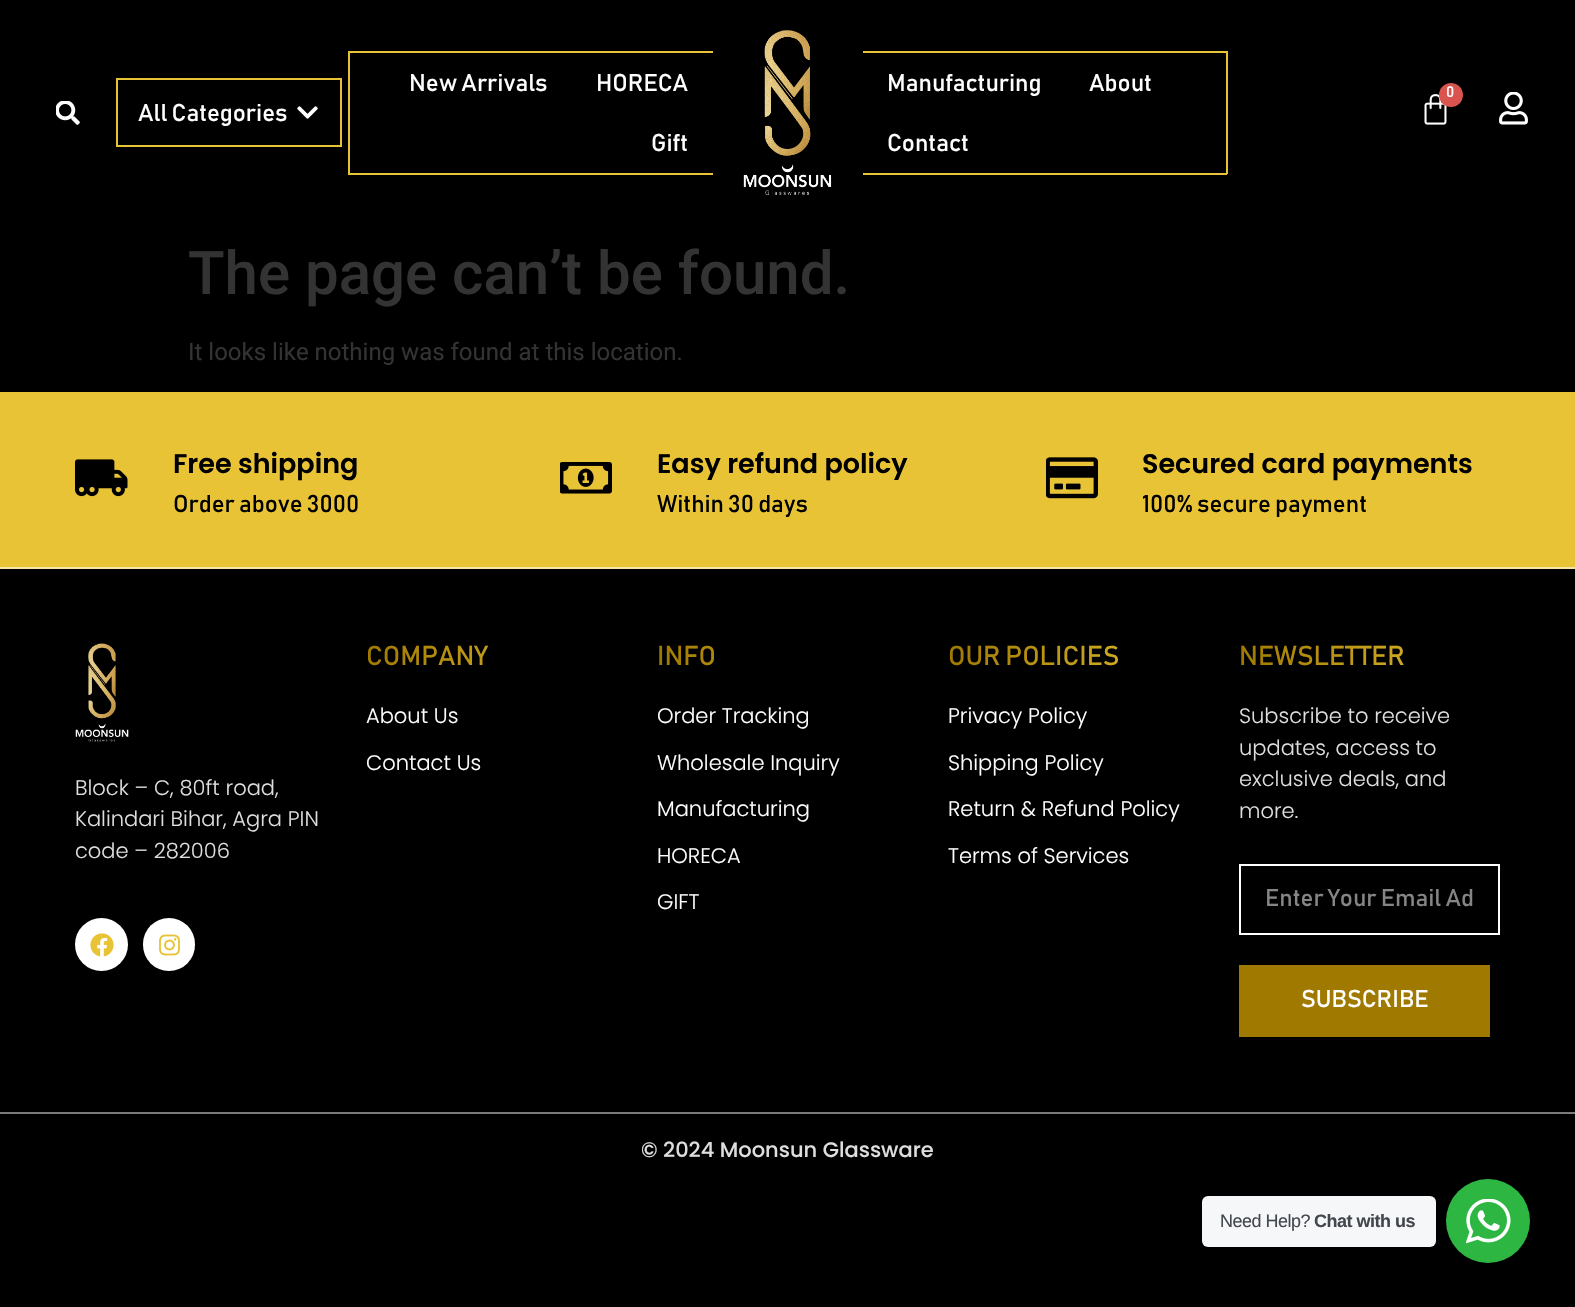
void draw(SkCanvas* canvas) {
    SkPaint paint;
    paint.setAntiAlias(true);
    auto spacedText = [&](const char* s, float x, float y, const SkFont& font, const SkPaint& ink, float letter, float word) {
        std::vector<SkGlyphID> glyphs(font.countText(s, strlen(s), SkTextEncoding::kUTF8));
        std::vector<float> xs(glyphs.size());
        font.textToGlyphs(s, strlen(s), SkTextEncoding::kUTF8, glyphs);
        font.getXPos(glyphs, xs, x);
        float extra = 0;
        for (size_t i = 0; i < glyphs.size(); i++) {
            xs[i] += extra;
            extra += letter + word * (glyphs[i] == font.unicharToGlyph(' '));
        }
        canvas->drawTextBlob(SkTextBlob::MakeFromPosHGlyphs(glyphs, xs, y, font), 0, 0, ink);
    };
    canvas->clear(0xFF000000);
    paint.setColor(0xFFE8C336);
    canvas->drawRect(SkRect::MakeXYWH(348, 51, 365, 2), paint);
    canvas->drawRect(SkRect::MakeXYWH(348, 173, 365, 2), paint);
    canvas->drawRect(SkRect::MakeXYWH(348, 51, 2, 123), paint);
    SkFont font1(fontMgr->matchFamilyStyle("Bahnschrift", SkFontStyle::Normal()), 24);
    font1.setSubpixel(true);
    paint.setColor(0xFFFFFFFF);
    canvas->drawString("New Arrivals", 409, 91, font1, paint);
    canvas->drawString("HORECA", 596, 91, font1, paint);
    canvas->drawString("Gift", 651, 151, font1, paint);
    canvas->drawImageRect(SkImages::DeferredFromEncodedData(SkData::MakeFromFileName("img1.png")), SkRect::MakeXYWH(743, 30, 89, 165), SkSamplingOptions());
    paint.setColor(0xFFE8C336);
    canvas->drawRect(SkRect::MakeXYWH(863, 51, 364, 2), paint);
    canvas->drawRect(SkRect::MakeXYWH(1226, 51, 2, 123), paint);
    canvas->drawRect(SkRect::MakeXYWH(863, 173, 364, 2), paint);
    paint.setColor(0xFFFFFFFF);
    canvas->drawString("Manufacturing", 887, 91, font1, paint);
    canvas->drawString("About", 1089, 91, font1, paint);
    canvas->drawString("Contact", 887, 151, font1, paint);
    canvas->drawImageRect(SkImages::DeferredFromEncodedData(SkData::MakeFromFileName("img2.png")), SkRect::MakeXYWH(1424, 94, 23, 31), SkSamplingOptions());
    paint.setColor(0xFFD9534F);
    canvas->drawCircle(1451, 95, 12, paint);
    SkFont font2(fontMgr->matchFamilyStyle("Bahnschrift", SkFontStyle::Normal()), 15);
    font2.setSubpixel(true);
    paint.setColor(0xFFFFFFFF);
    canvas->drawString("0", 1446, 97, font2, paint);
    canvas->drawImageRect(SkImages::DeferredFromEncodedData(SkData::MakeFromFileName("img3.png")), SkRect::MakeXYWH(1499, 92, 29, 33), SkSamplingOptions());
    canvas->drawImageRect(SkImages::DeferredFromEncodedData(SkData::MakeFromFileName("img4.png")), SkRect::MakeXYWH(56, 101, 24, 24), SkSamplingOptions());
    paint.setStyle(SkPaint::kStroke_Style);
    paint.setStrokeWidth(2);
    paint.setColor(0xFFE8C336);
    canvas->drawRect(SkRect::MakeXYWH(117, 79, 224, 67), paint);
    paint.setStyle(SkPaint::kFill_Style);
    paint.setColor(0xFFFFFFFF);
    canvas->drawString("All Categories", 138, 121, font1, paint);
    canvas->drawImageRect(SkImages::DeferredFromEncodedData(SkData::MakeFromFileName("img5.png")), SkRect::MakeXYWH(297, 106, 21, 13), SkSamplingOptions());
    SkFont font3(fontMgr->matchFamilyStyle("Roboto", SkFontStyle(500, SkFontStyle::kNormal_Width, SkFontStyle::kUpright_Slant)), 60);
    font3.setSubpixel(true);
    paint.setColor(0xFF333333);
    canvas->drawString("The page can’t be found.", 188, 294, font3, paint);
    SkFont font4(fontMgr->matchFamilyStyle("Roboto", SkFontStyle::Normal()), 24);
    font4.setSubpixel(true);
    canvas->drawString("It looks like nothing was found at this location.", 188, 360, font4, paint);
    paint.setColor(0xFFE8C336);
    canvas->drawRect(SkRect::MakeXYWH(0, 392, 1575, 175), paint);
    paint.setColor(0xFFF5E5A9);
    canvas->drawRect(SkRect::MakeXYWH(0, 567, 1575, 2), paint);
    canvas->drawImageRect(SkImages::DeferredFromEncodedData(SkData::MakeFromFileName("img6.png")), SkRect::MakeXYWH(75, 459, 53, 38), SkSamplingOptions());
    SkFont font5(fontMgr->matchFamilyStyle("Poppins", SkFontStyle(600, SkFontStyle::kNormal_Width, SkFontStyle::kUpright_Slant)), 27);
    font5.setSubpixel(true);
    paint.setColor(0xFF000000);
    canvas->drawString("Free shipping", 173, 473, font5, paint);
    canvas->drawString("Order above 3000", 173, 512, font1, paint);
    canvas->drawImageRect(SkImages::DeferredFromEncodedData(SkData::MakeFromFileName("img7.png")), SkRect::MakeXYWH(560, 462, 52, 32), SkSamplingOptions());
    canvas->drawString("Easy refund policy", 657, 473, font5, paint);
    canvas->drawString("Within 30 days", 657, 512, font1, paint);
    canvas->drawImageRect(SkImages::DeferredFromEncodedData(SkData::MakeFromFileName("img8.png")), SkRect::MakeXYWH(1046, 457, 52, 42), SkSamplingOptions());
    canvas->drawString("Secured card payments", 1142, 473, font5, paint);
    canvas->drawString("100% secure payment", 1142, 512, font1, paint);
    canvas->drawImageRect(SkImages::DeferredFromEncodedData(SkData::MakeFromFileName("img9.png")), SkRect::MakeXYWH(75, 643, 54, 99), SkSamplingOptions());
    SkFont font6(fontMgr->matchFamilyStyle("Poppins", SkFontStyle(300, SkFontStyle::kNormal_Width, SkFontStyle::kUpright_Slant)), 21);
    font6.setSubpixel(true);
    paint.setColor(0xFFDEDEDE);
    canvas->drawString("Block – C, 80ft road,", 75, 795, font6, paint);
    canvas->drawString("Kalindari Bihar, Agra PIN", 75, 826, font6, paint);
    canvas->drawString("code – 282006", 75, 858, font6, paint);
    paint.setColor(0xFFFFFFFF);
    canvas->drawCircle(101.5f, 944.5f, 26.5f, paint);
    canvas->drawImageRect(SkImages::DeferredFromEncodedData(SkData::MakeFromFileName("img10.png")), SkRect::MakeXYWH(90, 933, 24, 24), SkSamplingOptions());
    canvas->drawRoundRect(SkRect::MakeXYWH(143, 918, 52, 53), 26, 26, paint);
    canvas->drawImageRect(SkImages::DeferredFromEncodedData(SkData::MakeFromFileName("img11.png")), SkRect::MakeXYWH(159, 934, 21, 22), SkSamplingOptions());
    SkFont font7(fontMgr->matchFamilyStyle("Bahnschrift", SkFontStyle::Normal()), 27);
    font7.setSubpixel(true);
    {
        const SkColor colors[] = {0xFFA07900, 0xFFE8C336};
        const float stops[] = {0, 1};
        const SkPoint ends[] = {{366, 657}, {627, 657}};
        paint.setShader(SkGradientShader::MakeLinear(ends, colors, stops, 2, SkTileMode::kClamp));
        paint.setAlpha(255);
    }
    canvas->drawString("COMPANY", 366, 665, font7, paint);
    paint.setShader(nullptr);
    paint.setColor(0xFFFFFFFF);
    canvas->drawString("About Us", 366, 723, font6, paint);
    canvas->drawString("Contact Us", 366, 770, font6, paint);
    {
        const SkColor colors[] = {0xFFA07900, 0xFFE8C336};
        const float stops[] = {0, 1};
        const SkPoint ends[] = {{657, 657}, {918, 657}};
        paint.setShader(SkGradientShader::MakeLinear(ends, colors, stops, 2, SkTileMode::kClamp));
        paint.setAlpha(255);
    }
    canvas->drawString("INFO", 657, 665, font7, paint);
    paint.setShader(nullptr);
    paint.setColor(0xFFFFFFFF);
    canvas->drawString("Order Tracking", 657, 723, font6, paint);
    canvas->drawString("Wholesale Inquiry", 657, 770, font6, paint);
    canvas->drawString("Manufacturing", 657, 816, font6, paint);
    canvas->drawString("HORECA", 657, 863, font6, paint);
    canvas->drawString("GIFT", 657, 909, font6, paint);
    {
        const SkColor colors[] = {0xFFA07900, 0xFFE8C336};
        const float stops[] = {0, 1};
        const SkPoint ends[] = {{948, 657}, {1209, 657}};
        paint.setShader(SkGradientShader::MakeLinear(ends, colors, stops, 2, SkTileMode::kClamp));
        paint.setAlpha(255);
    }
    canvas->drawString("OUR POLICIES", 948, 665, font7, paint);
    paint.setShader(nullptr);
    paint.setColor(0xFFFFFFFF);
    canvas->drawString("Privacy Policy", 948, 723, font6, paint);
    canvas->drawString("Shipping Policy", 948, 770, font6, paint);
    canvas->drawString("Return & Refund Policy", 948, 816, font6, paint);
    canvas->drawString("Terms of Services", 948, 863, font6, paint);
    {
        const SkColor colors[] = {0xFFA07900, 0xFFE8C336};
        const float stops[] = {0, 1};
        const SkPoint ends[] = {{1239, 657}, {1500, 657}};
        paint.setShader(SkGradientShader::MakeLinear(ends, colors, stops, 2, SkTileMode::kClamp));
        paint.setAlpha(255);
    }
    canvas->drawString("NEWSLETTER", 1239, 665, font7, paint);
    paint.setShader(nullptr);
    paint.setColor(0xFFDEDEDE);
    canvas->drawString("Subscribe to receive", 1239, 723, font6, paint);
    canvas->drawString("updates, access to", 1239, 755, font6, paint);
    canvas->drawString("exclusive deals, and", 1239, 786, font6, paint);
    canvas->drawString("more.", 1239, 818, font6, paint);
    paint.setStyle(SkPaint::kStroke_Style);
    paint.setColor(0xFFFFFFFF);
    canvas->drawRect(SkRect::MakeXYWH(1240, 865, 259, 69), paint);
    paint.setStyle(SkPaint::kFill_Style);
    paint.setColor(0xFF858585);
    canvas->drawString("Enter Your Email Ad", 1265, 906, font1, paint);
    paint.setColor(0xFFA07900);
    canvas->drawRect(SkRect::MakeXYWH(1239, 965, 251, 72), paint);
    paint.setColor(0xFFFFFFFF);
    canvas->drawString("SUBSCRIBE", 1301, 1007, font1, paint);
    paint.setColor(0xFF7A7A7A);
    canvas->drawRect(SkRect::MakeXYWH(0, 1112, 1575, 2), paint);
    SkFont font8(fontMgr->matchFamilyStyle("Poppins", SkFontStyle(500, SkFontStyle::kNormal_Width, SkFontStyle::kUpright_Slant)), 21);
    font8.setSubpixel(true);
    paint.setColor(0xFFDEDEDE);
    canvas->drawString("© 2024 Moonsun Glassware", 641, 1157, font8, paint);
    paint.setColor(0xFFF5F7F9);
    canvas->drawRoundRect(SkRect::MakeXYWH(1202, 1196, 234, 51), 6, 6, paint);
    SkFont font9(fontMgr->matchFamilyStyle("Liberation Sans", SkFontStyle::Normal()), 18);
    font9.setSubpixel(true);
    paint.setColor(0xFF43474E);
    spacedText("Need Help?", 1220, 1227, font9, paint, -0.5f, 0);
    SkFont font10(fontMgr->matchFamilyStyle("Liberation Sans", SkFontStyle::Bold()), 18);
    font10.setSubpixel(true);
    spacedText("Chat with us", 1314, 1227, font10, paint, -0.5f, 0);
    paint.setColor(0xFF2DB742);
    canvas->drawCircle(1488, 1221, 42, paint);
    canvas->drawImageRect(SkImages::DeferredFromEncodedData(SkData::MakeFromFileName("img12.png")), SkRect::MakeXYWH(1466, 1199, 45, 45), SkSamplingOptions());
}
